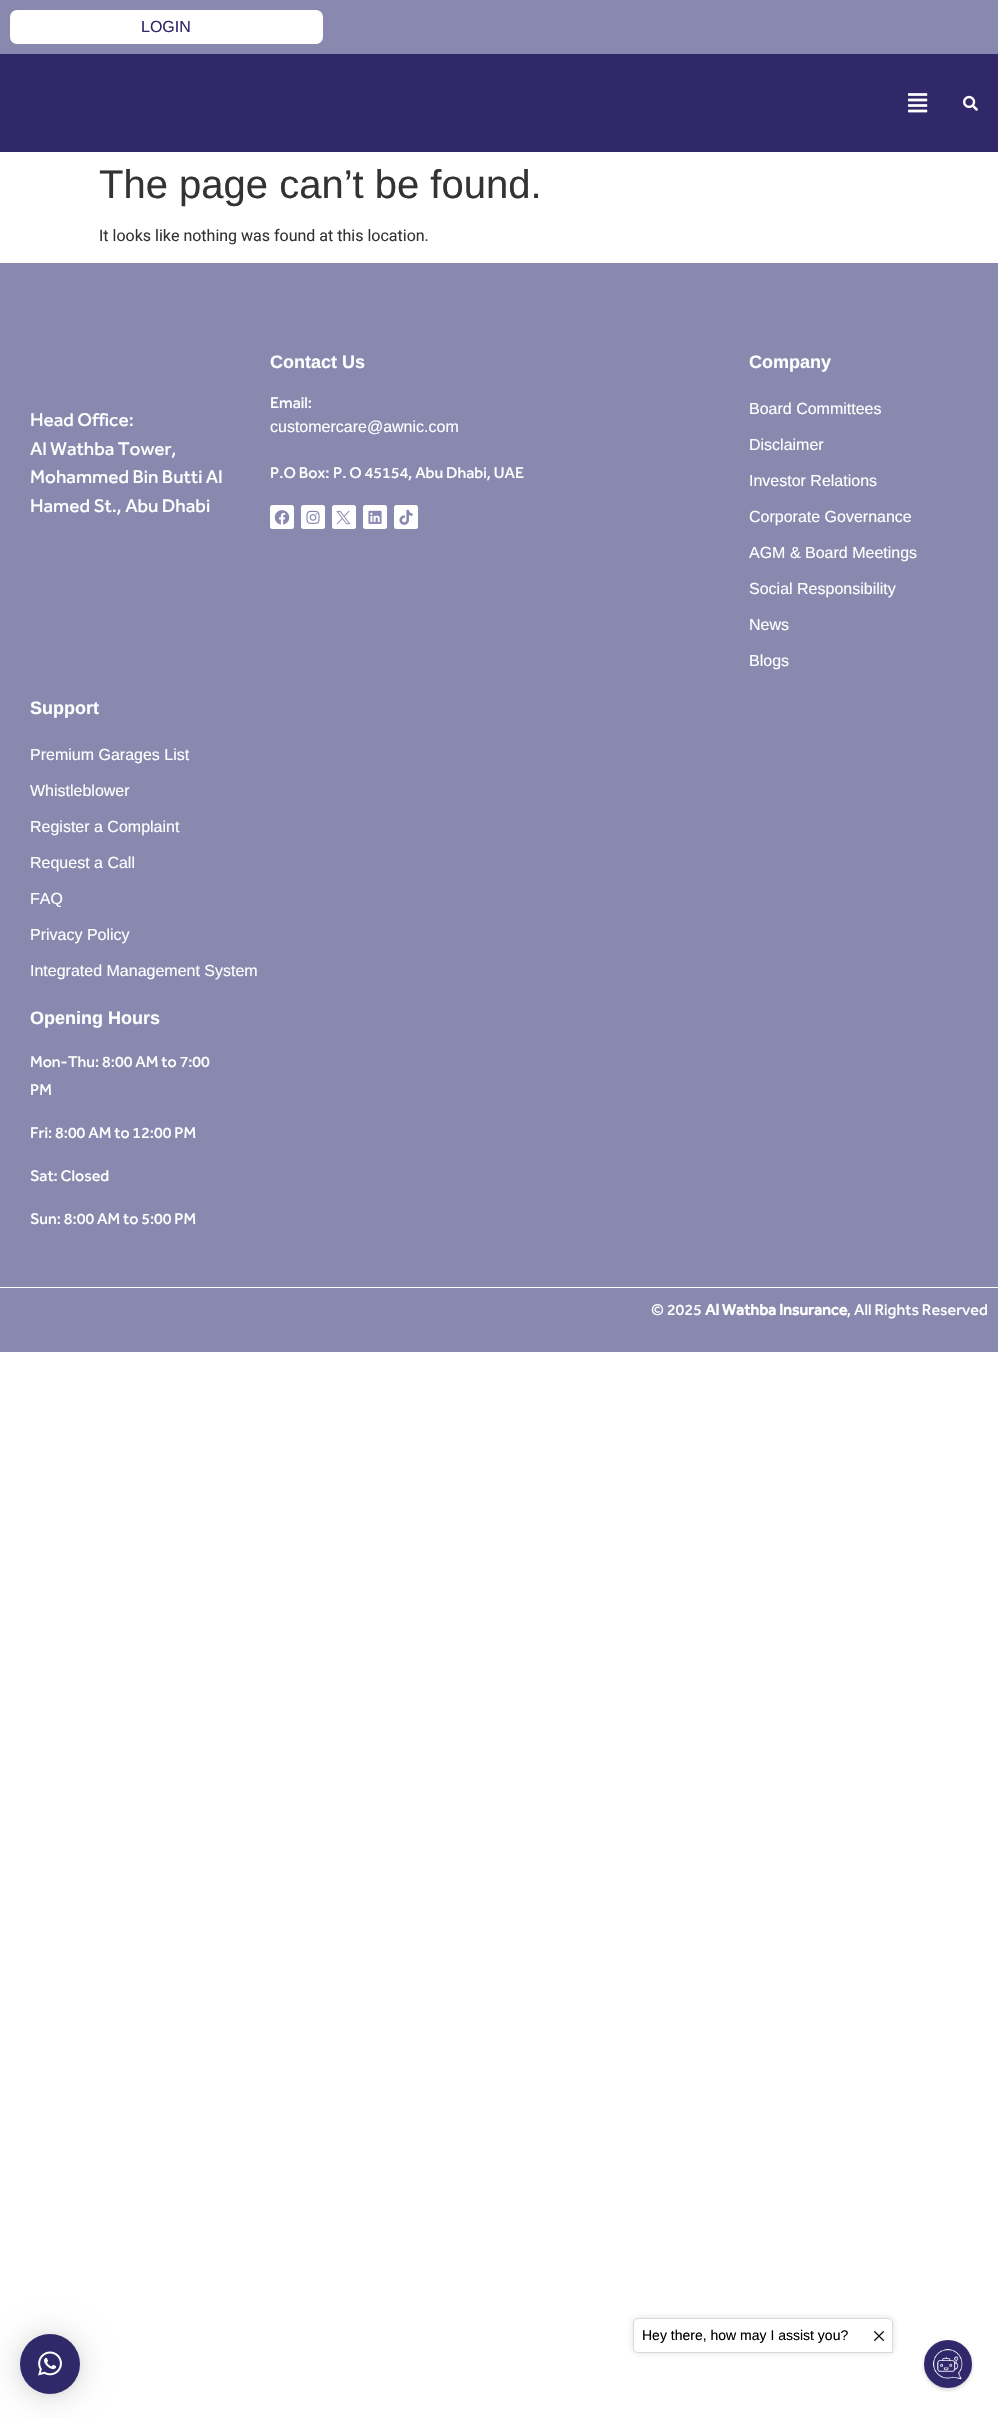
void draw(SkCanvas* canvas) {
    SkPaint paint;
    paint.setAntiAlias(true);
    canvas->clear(0xFFFFFFFF);
    paint.setColor(0xFF8988AF);
    canvas->drawRect(SkRect::MakeXYWH(0, 0, 998, 54), paint);
    paint.setColor(0xFFFFFFFF);
    canvas->drawRoundRect(SkRect::MakeXYWH(10, 10, 313, 34), 7, 7, paint);
    SkFont font1(fontMgr->matchFamilyStyle("Liberation Sans", SkFontStyle::Normal()), 16);
    font1.setSubpixel(true);
    paint.setColor(0xFF302869);
    canvas->drawString("LOGIN", 141, 32, font1, paint);
    canvas->drawRect(SkRect::MakeXYWH(0, 54, 998, 98), paint);
    canvas->drawImageRect(SkImages::DeferredFromEncodedData(SkData::MakeFromFileName("img1.png")), SkRect::MakeXYWH(908, 93, 20, 20), SkSamplingOptions());
    canvas->drawImageRect(SkImages::DeferredFromEncodedData(SkData::MakeFromFileName("img2.png")), SkRect::MakeXYWH(963, 95, 15, 16), SkSamplingOptions());
    SkFont font2(fontMgr->matchFamilyStyle("Liberation Sans", SkFontStyle::Normal()), 40);
    font2.setSubpixel(true);
    paint.setColor(0xFF333333);
    canvas->drawString("The page can’t be found.", 99, 198, font2, paint);
    SkFont font3(fontMgr->matchFamilyStyle("Roboto", SkFontStyle::Normal()), 16);
    font3.setSubpixel(true);
    canvas->drawString("It looks like nothing was found at this location.", 99, 241, font3, paint);
    paint.setColor(0xFF8988AF);
    canvas->drawRect(SkRect::MakeXYWH(0, 263, 998, 1024), paint);
    SkFont font4(fontMgr->matchFamilyStyle("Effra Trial", SkFontStyle(500, SkFontStyle::kNormal_Width, SkFontStyle::kUpright_Slant)), 19);
    font4.setSubpixel(true);
    paint.setColor(0xFFFFFFFF);
    canvas->drawString("Head Office:", 30, 426, font4, paint);
    canvas->drawString("Al Wathba Tower,", 30, 455, font4, paint);
    canvas->drawString("Mohammed Bin Butti Al", 30, 483, font4, paint);
    canvas->drawString("Hamed St., Abu Dhabi", 30, 512, font4, paint);
    SkFont font5(fontMgr->matchFamilyStyle("Liberation Sans", SkFontStyle::Bold()), 18);
    font5.setSubpixel(true);
    canvas->drawString("Contact Us", 270, 368, font5, paint);
    SkFont font6(fontMgr->matchFamilyStyle("Effra Trial", SkFontStyle(500, SkFontStyle::kNormal_Width, SkFontStyle::kUpright_Slant)), 16);
    font6.setSubpixel(true);
    canvas->drawString("Email:", 270, 408, font6, paint);
    canvas->drawString("customercare@awnic.com", 270, 432, font1, paint);
    canvas->drawString("P.O Box:", 270, 478, font6, paint);
    canvas->drawString("P. O 45154, Abu Dhabi, UAE", 333, 478, font6, paint);
    canvas->drawRoundRect(SkRect::MakeXYWH(270, 505, 24, 24), 2.5f, 2.5f, paint);
    canvas->drawImageRect(SkImages::DeferredFromEncodedData(SkData::MakeFromFileName("img3.png")), SkRect::MakeXYWH(274, 510, 16, 15), SkSamplingOptions());
    canvas->drawRoundRect(SkRect::MakeXYWH(301, 505, 24, 24), 2.5f, 2.5f, paint);
    canvas->drawImageRect(SkImages::DeferredFromEncodedData(SkData::MakeFromFileName("img4.png")), SkRect::MakeXYWH(306, 510, 14, 14), SkSamplingOptions());
    canvas->drawRoundRect(SkRect::MakeXYWH(332, 505, 24, 24), 2.5f, 2.5f, paint);
    canvas->drawImageRect(SkImages::DeferredFromEncodedData(SkData::MakeFromFileName("img5.png")), SkRect::MakeXYWH(336, 510, 15, 15), SkSamplingOptions());
    canvas->drawRoundRect(SkRect::MakeXYWH(363, 505, 24, 24), 2.5f, 2.5f, paint);
    canvas->drawImageRect(SkImages::DeferredFromEncodedData(SkData::MakeFromFileName("img6.png")), SkRect::MakeXYWH(368, 510, 14, 14), SkSamplingOptions());
    canvas->drawRoundRect(SkRect::MakeXYWH(394, 505, 24, 24), 2.5f, 2.5f, paint);
    canvas->drawImageRect(SkImages::DeferredFromEncodedData(SkData::MakeFromFileName("img7.png")), SkRect::MakeXYWH(399, 509, 14, 16), SkSamplingOptions());
    canvas->drawString("Company", 749, 368, font5, paint);
    canvas->drawString("Board Committees", 749, 414, font1, paint);
    canvas->drawString("Disclaimer", 749, 450, font1, paint);
    canvas->drawString("Investor Relations", 749, 486, font1, paint);
    canvas->drawString("Corporate Governance", 749, 522, font1, paint);
    canvas->drawString("AGM & Board Meetings", 749, 558, font1, paint);
    canvas->drawString("Social Responsibility", 749, 594, font1, paint);
    canvas->drawString("News", 749, 630, font1, paint);
    canvas->drawString("Blogs", 749, 666, font1, paint);
    canvas->drawString("Support", 30, 714, font5, paint);
    canvas->drawString("Premium Garages List", 30, 760, font1, paint);
    canvas->drawString("Whistleblower", 30, 796, font1, paint);
    canvas->drawString("Register a Complaint", 30, 832, font1, paint);
    canvas->drawString("Request a Call", 30, 868, font1, paint);
    canvas->drawString("FAQ", 30, 904, font1, paint);
    canvas->drawString("Privacy Policy", 30, 940, font1, paint);
    canvas->drawString("Integrated Management System", 30, 976, font1, paint);
    canvas->drawString("Opening Hours", 30, 1024, font5, paint);
    canvas->drawString("Mon-Thu: 8:00 AM to 7:00", 30, 1067, font6, paint);
    canvas->drawString("PM", 30, 1095, font6, paint);
    canvas->drawString("Fri: 8:00 AM to 12:00 PM", 30, 1138, font6, paint);
    canvas->drawString("Sat: Closed", 30, 1181, font6, paint);
    canvas->drawString("Sun: 8:00 AM to 5:00 PM", 30, 1224, font6, paint);
    paint.setColor(0xFF8988AF);
    canvas->drawRect(SkRect::MakeXYWH(0, 1288, 998, 64), paint);
    paint.setColor(0xFFFFFFFF);
    canvas->drawString("© 2025", 651, 1315, font6, paint);
    SkFont font7(fontMgr->matchFamilyStyle("Effra Trial", SkFontStyle::Bold()), 16);
    font7.setSubpixel(true);
    canvas->drawString("Al Wathba Insurance", 705, 1315, font7, paint);
    canvas->drawString(", All Rights Reserved", 847, 1315, font6, paint);
    paint.setColor(0x262B2D38);
    paint.setMaskFilter(SkMaskFilter::MakeBlur(kNormal_SkBlurStyle, 3.5f));
    canvas->drawRoundRect(SkRect::MakeXYWH(633, 2318, 260, 35), 5, 5, paint);
    paint.setMaskFilter(nullptr);
    paint.setColor(0xFFFFFFFF);
    canvas->drawPath(SkPathBuilder().moveTo(638, 2318).lineTo(888, 2318).cubicTo(891, 2318, 893, 2320, 893, 2323).lineTo(893, 2353).lineTo(638, 2353).cubicTo(635, 2353, 633, 2351, 633, 2348).lineTo(633, 2323).cubicTo(633, 2320, 635, 2318, 638, 2318).close().detach(), paint);
    paint.setStyle(SkPaint::kStroke_Style);
    paint.setStrokeWidth(1);
    paint.setColor(0x26000000);
    canvas->drawPath(SkPathBuilder().moveTo(638, 2318.5f).lineTo(888, 2318.5f).cubicTo(890.5f, 2318.5f, 892.5f, 2320.5f, 892.5f, 2323).lineTo(892.5f, 2352.5f).lineTo(638, 2352.5f).cubicTo(635.5f, 2352.5f, 633.5f, 2350.5f, 633.5f, 2348).lineTo(633.5f, 2323).cubicTo(633.5f, 2320.5f, 635.5f, 2318.5f, 638, 2318.5f).close().detach(), paint);
    SkFont font8(fontMgr->matchFamilyStyle("Liberation Sans", SkFontStyle::Normal()), 14);
    font8.setSubpixel(true);
    paint.setStyle(SkPaint::kFill_Style);
    paint.setColor(0xFF000000);
    canvas->drawString("Hey there, how may I assist you?", 642, 2340, font8, paint);
    canvas->drawImageRect(SkImages::DeferredFromEncodedData(SkData::MakeFromFileName("img8.png")), SkRect::MakeXYWH(874, 2331, 10, 10), SkSamplingOptions());
    canvas->drawImageRect(SkImages::DeferredFromEncodedData(SkData::MakeFromFileName("img9.png")), SkRect::MakeXYWH(922, 2340, 52, 52), SkSamplingOptions());
    paint.setColor(0x29000000);
    paint.setMaskFilter(SkMaskFilter::MakeBlur(kNormal_SkBlurStyle, 16));
    canvas->drawRoundRect(SkRect::MakeXYWH(20, 2336, 60, 60), 30, 30, paint);
    paint.setMaskFilter(nullptr);
    paint.setColor(0x0F000000);
    paint.setMaskFilter(SkMaskFilter::MakeBlur(kNormal_SkBlurStyle, 3));
    canvas->drawRoundRect(SkRect::MakeXYWH(20, 2335, 60, 60), 30, 30, paint);
    paint.setMaskFilter(nullptr);
    paint.setColor(0xFF2F2969);
    canvas->drawCircle(50, 2364, 30, paint);
    canvas->drawImageRect(SkImages::DeferredFromEncodedData(SkData::MakeFromFileName("img10.png")), SkRect::MakeXYWH(38, 2351, 24, 25), SkSamplingOptions());
}
